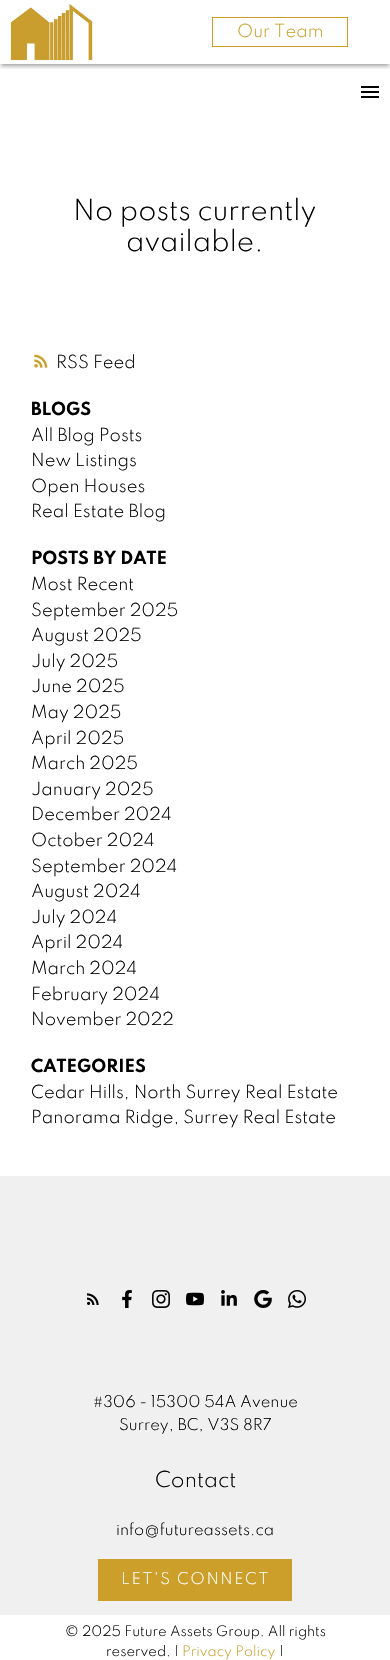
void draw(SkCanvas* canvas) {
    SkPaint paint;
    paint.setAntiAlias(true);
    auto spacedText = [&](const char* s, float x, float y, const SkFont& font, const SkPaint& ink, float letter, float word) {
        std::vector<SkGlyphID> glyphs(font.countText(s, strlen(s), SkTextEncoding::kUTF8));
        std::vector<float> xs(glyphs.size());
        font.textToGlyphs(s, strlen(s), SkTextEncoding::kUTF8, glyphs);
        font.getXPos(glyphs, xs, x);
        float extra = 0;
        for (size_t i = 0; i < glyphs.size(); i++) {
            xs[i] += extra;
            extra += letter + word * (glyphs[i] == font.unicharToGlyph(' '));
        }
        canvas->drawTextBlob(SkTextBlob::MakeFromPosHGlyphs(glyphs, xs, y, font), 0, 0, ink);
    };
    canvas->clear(0xFFFFFFFF);
    canvas->save();
    canvas->clipRect(SkRect::MakeXYWH(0, 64, 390, 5));
    paint.setColor(0x1F000000);
    paint.setMaskFilter(SkMaskFilter::MakeBlur(kNormal_SkBlurStyle, 4));
    canvas->drawRect(SkRect::MakeXYWH(0, 1, 390, 64), paint);
    paint.setMaskFilter(nullptr);
    paint.setColor(0x24000000);
    paint.setMaskFilter(SkMaskFilter::MakeBlur(kNormal_SkBlurStyle, 2));
    canvas->drawRect(SkRect::MakeXYWH(0, 3, 390, 64), paint);
    paint.setMaskFilter(nullptr);
    canvas->restore();
    canvas->save();
    canvas->clipRect(SkRect::MakeXYWH(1, 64, 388, 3));
    paint.setColor(0x33000000);
    paint.setMaskFilter(SkMaskFilter::MakeBlur(kNormal_SkBlurStyle, 1.5f));
    canvas->drawRect(SkRect::MakeXYWH(2, 5, 386, 60), paint);
    paint.setMaskFilter(nullptr);
    canvas->restore();
    canvas->drawImageRect(SkImages::DeferredFromEncodedData(SkData::MakeFromFileName("img1.png")), SkRect::MakeXYWH(10, 3, 83, 58), SkSamplingOptions());
    paint.setStyle(SkPaint::kStroke_Style);
    paint.setStrokeWidth(1);
    paint.setColor(0xFFCB9F2A);
    canvas->drawRect(SkRect::MakeXYWH(212.5f, 17.5f, 135, 29), paint);
    SkFont font1(fontMgr->matchFamilyStyle("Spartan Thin", SkFontStyle(300, SkFontStyle::kNormal_Width, SkFontStyle::kUpright_Slant)), 16);
    font1.setSubpixel(true);
    paint.setStyle(SkPaint::kFill_Style);
    canvas->drawString("Our Team", 237, 37, font1, paint);
    canvas->drawImageRect(SkImages::DeferredFromEncodedData(SkData::MakeFromFileName("img2.png")), SkRect::MakeXYWH(361, 86, 18, 12), SkSamplingOptions());
    SkFont font2(fontMgr->matchFamilyStyle("Spartan Thin", SkFontStyle(300, SkFontStyle::kNormal_Width, SkFontStyle::kUpright_Slant)), 25.75f);
    font2.setSubpixel(true);
    paint.setColor(0xFF000000);
    canvas->drawString("No posts currently", 73, 220, font2, paint);
    canvas->drawString("available.", 126, 251, font2, paint);
    canvas->drawImageRect(SkImages::DeferredFromEncodedData(SkData::MakeFromFileName("img3.png")), SkRect::MakeXYWH(34, 354, 14, 14), SkSamplingOptions());
    canvas->drawString("RSS Feed", 56, 368, font1, paint);
    SkFont font3(fontMgr->matchFamilyStyle("Spartan Thin", SkFontStyle::Bold()), 16);
    font3.setSubpixel(true);
    canvas->drawString("BLOGS", 31, 415, font3, paint);
    canvas->drawString("All Blog Posts", 31, 441, font1, paint);
    canvas->drawString("New Listings", 31, 466, font1, paint);
    canvas->drawString("Open Houses", 31, 492, font1, paint);
    canvas->drawString("Real Estate Blog", 31, 517, font1, paint);
    canvas->drawString("POSTS BY DATE", 31, 564, font3, paint);
    canvas->drawString("Most Recent", 31, 590, font1, paint);
    canvas->drawString("September 2025", 31, 616, font1, paint);
    canvas->drawString("August 2025", 31, 641, font1, paint);
    canvas->drawString("July 2025", 31, 667, font1, paint);
    canvas->drawString("June 2025", 31, 692, font1, paint);
    canvas->drawString("May 2025", 31, 718, font1, paint);
    canvas->drawString("April 2025", 31, 744, font1, paint);
    canvas->drawString("March 2025", 31, 769, font1, paint);
    canvas->drawString("January 2025", 31, 795, font1, paint);
    canvas->drawString("December 2024", 31, 820, font1, paint);
    canvas->drawString("October 2024", 31, 846, font1, paint);
    canvas->drawString("September 2024", 31, 872, font1, paint);
    canvas->drawString("August 2024", 31, 897, font1, paint);
    canvas->drawString("July 2024", 31, 923, font1, paint);
    canvas->drawString("April 2024", 31, 948, font1, paint);
    canvas->drawString("March 2024", 31, 974, font1, paint);
    canvas->drawString("February 2024", 31, 1000, font1, paint);
    canvas->drawString("November 2022", 31, 1025, font1, paint);
    canvas->drawString("CATEGORIES", 31, 1072, font3, paint);
    canvas->drawString("Cedar Hills, North Surrey Real Estate", 31, 1098, font1, paint);
    canvas->drawString("Panorama Ridge, Surrey Real Estate", 31, 1123, font1, paint);
    paint.setColor(0xFFF0F0F0);
    canvas->drawRect(SkRect::MakeXYWH(0, 1176, 390, 439), paint);
    canvas->drawImageRect(SkImages::DeferredFromEncodedData(SkData::MakeFromFileName("img4.png")), SkRect::MakeXYWH(87, 1293, 12, 12), SkSamplingOptions());
    canvas->drawImageRect(SkImages::DeferredFromEncodedData(SkData::MakeFromFileName("img5.png")), SkRect::MakeXYWH(122, 1290, 10, 18), SkSamplingOptions());
    canvas->drawImageRect(SkImages::DeferredFromEncodedData(SkData::MakeFromFileName("img6.png")), SkRect::MakeXYWH(152, 1290, 18, 18), SkSamplingOptions());
    canvas->drawImageRect(SkImages::DeferredFromEncodedData(SkData::MakeFromFileName("img7.png")), SkRect::MakeXYWH(186, 1292, 18, 14), SkSamplingOptions());
    canvas->drawImageRect(SkImages::DeferredFromEncodedData(SkData::MakeFromFileName("img8.png")), SkRect::MakeXYWH(221, 1290, 16, 16), SkSamplingOptions());
    canvas->drawImageRect(SkImages::DeferredFromEncodedData(SkData::MakeFromFileName("img9.png")), SkRect::MakeXYWH(254, 1290, 18, 18), SkSamplingOptions());
    canvas->drawImageRect(SkImages::DeferredFromEncodedData(SkData::MakeFromFileName("img10.png")), SkRect::MakeXYWH(288, 1290, 18, 18), SkSamplingOptions());
    SkFont font4(fontMgr->matchFamilyStyle("Spartan Thin", SkFontStyle(300, SkFontStyle::kNormal_Width, SkFontStyle::kUpright_Slant)), 14.4f);
    font4.setSubpixel(true);
    paint.setColor(0xFF000000);
    canvas->drawString("#306 - 15300 54A Avenue", 93, 1407, font4, paint);
    canvas->drawString("Surrey, BC, V3S 8R7", 119, 1430, font4, paint);
    SkFont font5(fontMgr->matchFamilyStyle("Spartan Thin", SkFontStyle(300, SkFontStyle::kNormal_Width, SkFontStyle::kUpright_Slant)), 19.5f);
    font5.setSubpixel(true);
    canvas->drawString("Contact", 155, 1487, font5, paint);
    canvas->drawString("info@futureassets.ca", 116, 1535, font4, paint);
    paint.setColor(0xFFCB9F2A);
    canvas->drawRect(SkRect::MakeXYWH(98, 1559, 194, 42), paint);
    paint.setColor(0xFFFFFFFF);
    spacedText("LET'S CONNECT", 121, 1584, font4, paint, 1.6f, 0);
    SkFont font6(fontMgr->matchFamilyStyle("Spartan Thin", SkFontStyle(300, SkFontStyle::kNormal_Width, SkFontStyle::kUpright_Slant)), 12.8f);
    font6.setSubpixel(true);
    paint.setColor(0xFF000000);
    canvas->drawString("© 2025 Future Assets Group. All rights", 65, 1636, font6, paint);
    canvas->drawString("reserved. |", 106, 1656, font6, paint);
    paint.setColor(0xFFCB9F2A);
    canvas->drawString("Privacy Policy", 182, 1656, font6, paint);
    paint.setColor(0xFF000000);
    canvas->drawString("|", 279, 1656, font6, paint);
}
